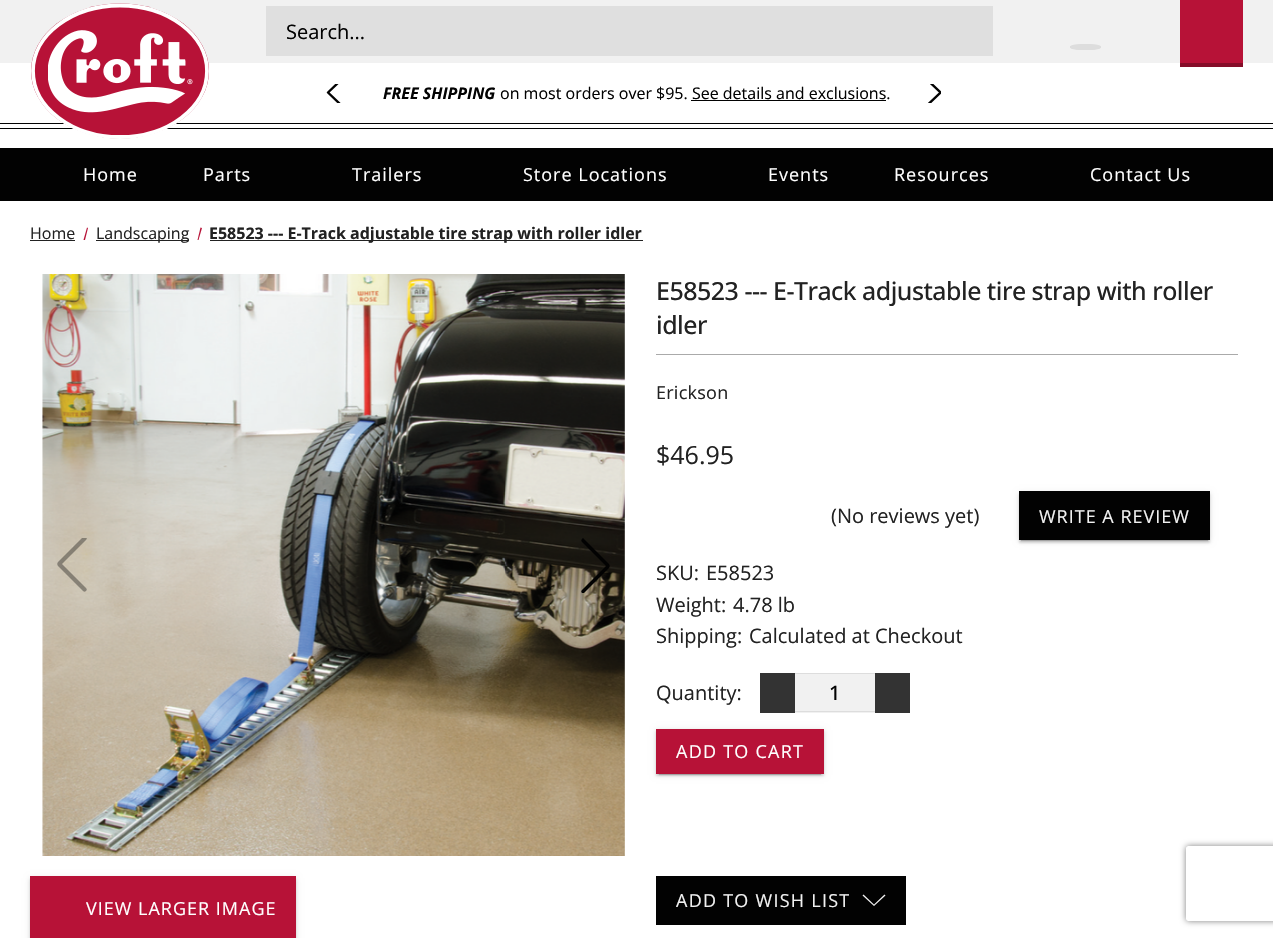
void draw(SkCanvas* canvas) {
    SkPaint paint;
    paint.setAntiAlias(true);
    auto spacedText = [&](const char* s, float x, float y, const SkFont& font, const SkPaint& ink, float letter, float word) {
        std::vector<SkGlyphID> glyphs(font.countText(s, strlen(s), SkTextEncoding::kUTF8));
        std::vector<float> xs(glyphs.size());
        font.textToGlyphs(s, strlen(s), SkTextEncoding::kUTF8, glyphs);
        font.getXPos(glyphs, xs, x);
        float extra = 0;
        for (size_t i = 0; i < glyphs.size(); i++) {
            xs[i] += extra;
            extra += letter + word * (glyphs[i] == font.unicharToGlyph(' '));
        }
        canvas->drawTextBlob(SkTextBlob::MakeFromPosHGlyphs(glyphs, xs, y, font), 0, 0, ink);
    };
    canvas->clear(0xFFFFFFFF);
    paint.setColor(0xFFF1F1F1);
    canvas->drawRect(SkRect::MakeXYWH(0, 0, 1273, 63), paint);
    paint.setColor(0xFF020202);
    canvas->drawRect(SkRect::MakeXYWH(0, 123, 1273, 1), paint);
    canvas->drawRect(SkRect::MakeXYWH(0, 128, 1273, 1), paint);
    paint.setColor(0xFFB71237);
    canvas->drawOval(SkRect::MakeXYWH(31, 3.5f, 178, 135), paint);
    paint.setStyle(SkPaint::kStroke_Style);
    paint.setStrokeWidth(3.8f);
    paint.setColor(0xFFFFFFFF);
    canvas->drawPath(SkPathBuilder().moveTo(120, 5.5f).cubicTo(168, 5.5f, 207, 35, 207, 71).cubicTo(207, 107.5f, 168, 137, 120, 137).cubicTo(72, 137, 33, 107.5f, 33, 71).cubicTo(33, 35, 72, 5.5f, 120, 5.5f).close().detach(), paint);
    canvas->drawImageRect(SkImages::DeferredFromEncodedData(SkData::MakeFromFileName("img1.png")), SkRect::MakeXYWH(48, 30, 145, 83), SkSamplingOptions());
    paint.setStyle(SkPaint::kFill_Style);
    paint.setColor(0xFFDFDFDF);
    canvas->drawRect(SkRect::MakeXYWH(266, 6, 727, 50), paint);
    SkFont font1(fontMgr->matchFamilyStyle("Open Sans", SkFontStyle::Normal()), 20);
    font1.setSubpixel(true);
    paint.setColor(0xFF020202);
    canvas->drawString("Search...", 286, 39, font1, paint);
    paint.setColor(0xFFB71237);
    canvas->drawRect(SkRect::MakeXYWH(1180, 0, 63, 63), paint);
    paint.setColor(0xFF850D28);
    canvas->drawRect(SkRect::MakeXYWH(1180, 63, 63, 4), paint);
    paint.setColor(0xFFDDDDDD);
    canvas->drawOval(SkRect::MakeXYWH(1070, 44, 31, 6), paint);
    paint.setStyle(SkPaint::kStroke_Style);
    paint.setStrokeWidth(1.2f);
    canvas->drawPath(SkPathBuilder().moveTo(1085.5f, 44.5f).cubicTo(1094, 44.5f, 1100.5f, 45.5f, 1100.5f, 47).cubicTo(1100.5f, 48.5f, 1094, 49.5f, 1085.5f, 49.5f).cubicTo(1077.5f, 49.5f, 1070.5f, 48.5f, 1070.5f, 47).cubicTo(1070.5f, 45.5f, 1077.5f, 44.5f, 1085.5f, 44.5f).close().detach(), paint);
    canvas->save();
    canvas->clipRect(SkRect::MakeXYWH(326, 84, 28, 19));
    paint.setStrokeWidth(2.4f);
    paint.setStrokeCap(SkPaint::kRound_Cap);
    paint.setStrokeJoin(SkPaint::kRound_Join);
    paint.setColor(0xFF020202);
    canvas->drawPath(SkPathBuilder().moveTo(353, 68.5f).lineTo(328, 92.5f).lineTo(353, 116.5f).detach(), paint);
    canvas->restore();
    SkFont font2(fontMgr->matchFamilyStyle("Open Sans", SkFontStyle::BoldItalic()), 16);
    font2.setSubpixel(true);
    paint.setStyle(SkPaint::kFill_Style);
    canvas->drawString("FREE SHIPPING", 383, 99, font2, paint);
    SkFont font3(fontMgr->matchFamilyStyle("Open Sans", SkFontStyle::Normal()), 16);
    font3.setSubpixel(true);
    canvas->drawString("on most orders over $95. See details and exclusions.", 500, 99, font3, paint);
    canvas->drawRect(SkRect::MakeXYWH(691, 100, 195, 1), paint);
    canvas->save();
    canvas->clipRect(SkRect::MakeXYWH(914, 84, 27, 19));
    paint.setStyle(SkPaint::kStroke_Style);
    canvas->drawPath(SkPathBuilder().moveTo(915.5f, 68.5f).lineTo(940.5f, 92.5f).lineTo(915.5f, 116.5f).detach(), paint);
    canvas->restore();
    paint.setStyle(SkPaint::kFill_Style);
    canvas->drawRect(SkRect::MakeXYWH(0, 148, 1273, 53), paint);
    SkFont font4(fontMgr->matchFamilyStyle("Open Sans", SkFontStyle::Normal()), 18);
    font4.setSubpixel(true);
    paint.setColor(0xFFFFFFFF);
    spacedText("Home", 83, 181, font4, paint, 1, 0);
    spacedText("Parts", 203, 181, font4, paint, 1, 0);
    spacedText("Trailers", 352, 181, font4, paint, 1, 0);
    spacedText("Store Locations", 523, 181, font4, paint, 1, 0);
    spacedText("Events", 768, 181, font4, paint, 1, 0);
    spacedText("Resources", 894, 181, font4, paint, 1, 0);
    spacedText("Contact Us", 1090, 181, font4, paint, 1, 0);
    paint.setColor(0xFF222222);
    canvas->drawString("Home", 30, 239, font3, paint);
    canvas->drawRect(SkRect::MakeXYWH(30, 240, 45, 1), paint);
    paint.setColor(0xFFB71237);
    canvas->drawPath(SkPathBuilder().moveTo(87, 227.5f).lineTo(88, 228).lineTo(85, 240).lineTo(83.5f, 240).close().detach(), paint);
    paint.setColor(0xFF222222);
    canvas->drawRect(SkRect::MakeXYWH(96, 240, 93, 1), paint);
    canvas->drawString("Landscaping", 96, 239, font3, paint);
    paint.setColor(0xFFB71237);
    canvas->drawPath(SkPathBuilder().moveTo(200.5f, 227.5f).lineTo(202, 228).lineTo(198.5f, 240).lineTo(197.5f, 240).close().detach(), paint);
    paint.setColor(0xFF222222);
    canvas->drawRect(SkRect::MakeXYWH(210, 240, 433, 1), paint);
    SkFont font5(fontMgr->matchFamilyStyle("Open Sans", SkFontStyle::Bold()), 16);
    font5.setSubpixel(true);
    canvas->drawString("E58523 --- E-Track adjustable tire strap with roller idler", 209, 239, font5, paint);
    paint.setColor(0xFFAAAAAA);
    canvas->drawRect(SkRect::MakeXYWH(656, 354, 582, 1), paint);
    SkFont font6(fontMgr->matchFamilyStyle("Open Sans", SkFontStyle(500, SkFontStyle::kNormal_Width, SkFontStyle::kUpright_Slant)), 25);
    font6.setSubpixel(true);
    paint.setColor(0xFF222222);
    spacedText("E58523 --- E-Track adjustable tire strap with roller", 656, 300, font6, paint, -0.5f, 0);
    spacedText("idler", 656, 334, font6, paint, -0.5f, 0);
    spacedText("Erickson", 656, 399, font4, paint, 0.25f, 0);
    SkFont font7(fontMgr->matchFamilyStyle("Open Sans", SkFontStyle::Normal()), 25);
    font7.setSubpixel(true);
    canvas->drawString("$46.95", 656, 464, font7, paint);
    canvas->drawString("(No reviews yet)", 831, 523, font1, paint);
    paint.setColor(0x1F000000);
    paint.setMaskFilter(SkMaskFilter::MakeBlur(kNormal_SkBlurStyle, 3));
    canvas->drawRect(SkRect::MakeXYWH(1019, 493, 191, 48), paint);
    paint.setMaskFilter(nullptr);
    paint.setColor(0x33000000);
    paint.setMaskFilter(SkMaskFilter::MakeBlur(kNormal_SkBlurStyle, 0.5f));
    canvas->drawRect(SkRect::MakeXYWH(1021, 498, 187, 43), paint);
    paint.setMaskFilter(nullptr);
    paint.setColor(0x24000000);
    paint.setMaskFilter(SkMaskFilter::MakeBlur(kNormal_SkBlurStyle, 1));
    canvas->drawRect(SkRect::MakeXYWH(1019, 494, 191, 49), paint);
    paint.setMaskFilter(nullptr);
    paint.setColor(0xFF020202);
    canvas->drawRect(SkRect::MakeXYWH(1019, 491, 191, 49), paint);
    paint.setColor(0xFFF1F1F1);
    spacedText("WRITE A REVIEW", 1039, 523, font4, paint, 1, 0);
    paint.setColor(0xFF222222);
    canvas->drawString("SKU:", 656, 580, font1, paint);
    canvas->drawString("E58523", 706, 580, font1, paint);
    canvas->drawString("Weight:", 656, 612, font1, paint);
    canvas->drawString("4.78 lb", 733, 612, font1, paint);
    canvas->drawString("Shipping:", 656, 643, font1, paint);
    canvas->drawString("Calculated at Checkout", 749, 643, font1, paint);
    canvas->drawImageRect(SkImages::DeferredFromEncodedData(SkData::MakeFromFileName("img2.png")), SkRect::MakeXYWH(42, 274, 583, 582), SkSamplingOptions());
    canvas->save();
    canvas->clipRect(SkRect::MakeXYWH(55, 538, 34, 55));
    paint.setColor(0x59020202);
    canvas->drawPath(SkPathBuilder().moveTo(86, 537).cubicTo(87, 538, 87, 539, 86, 540).lineTo(62, 564).lineTo(86, 588).cubicTo(87, 589, 87, 590, 86, 591).cubicTo(85, 592, 84, 592, 83, 591).lineTo(58, 566).cubicTo(57, 565, 57, 563, 58, 562).lineTo(83, 537).cubicTo(84, 537, 85, 537, 86, 537).close().detach(), paint);
    canvas->restore();
    paint.setColor(0xFF020202);
    canvas->drawPath(SkPathBuilder().moveTo(582, 593).cubicTo(581, 592, 581, 591, 582, 590).lineTo(606, 566).lineTo(582, 542).cubicTo(581, 541, 581, 540, 582, 539).cubicTo(582, 538, 584, 538, 584, 539).lineTo(609, 564).cubicTo(610, 565, 610, 567, 609, 568).lineTo(584, 593).cubicTo(584, 593, 582, 593, 582, 593).close().detach(), paint);
    paint.setColor(0x1F000000);
    paint.setMaskFilter(SkMaskFilter::MakeBlur(kNormal_SkBlurStyle, 3));
    canvas->drawRect(SkRect::MakeXYWH(30, 878, 266, 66), paint);
    paint.setMaskFilter(nullptr);
    paint.setColor(0x24000000);
    paint.setMaskFilter(SkMaskFilter::MakeBlur(kNormal_SkBlurStyle, 1));
    canvas->drawRect(SkRect::MakeXYWH(30, 879, 266, 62), paint);
    paint.setMaskFilter(nullptr);
    paint.setColor(0xFFB71237);
    canvas->drawRect(SkRect::MakeXYWH(30, 876, 266, 62), paint);
    paint.setColor(0xFFFFFFFF);
    spacedText("VIEW LARGER IMAGE", 86, 915, font4, paint, 1, 0);
    paint.setColor(0xFF222222);
    canvas->drawString("Quantity:", 656, 700, font1, paint);
    paint.setColor(0xFF333333);
    canvas->drawRect(SkRect::MakeXYWH(760, 673, 35, 40), paint);
    paint.setColor(0xFFF1F1F1);
    canvas->drawRect(SkRect::MakeXYWH(795, 674, 80, 39), paint);
    paint.setColor(0xFFDDDDDD);
    canvas->drawRect(SkRect::MakeXYWH(795, 673, 80, 1), paint);
    canvas->drawRect(SkRect::MakeXYWH(795, 711, 80, 1), paint);
    SkFont font8(fontMgr->matchFamilyStyle("Open Sans", SkFontStyle(500, SkFontStyle::kNormal_Width, SkFontStyle::kUpright_Slant)), 20);
    font8.setSubpixel(true);
    paint.setColor(0xFF020202);
    canvas->drawString("1", 829, 700, font8, paint);
    paint.setColor(0xFF333333);
    canvas->drawRect(SkRect::MakeXYWH(875, 673, 35, 40), paint);
    paint.setColor(0x1F000000);
    paint.setMaskFilter(SkMaskFilter::MakeBlur(kNormal_SkBlurStyle, 3));
    canvas->drawRect(SkRect::MakeXYWH(656, 730, 168, 45), paint);
    paint.setMaskFilter(nullptr);
    paint.setColor(0x33000000);
    paint.setMaskFilter(SkMaskFilter::MakeBlur(kNormal_SkBlurStyle, 0.5f));
    canvas->drawRect(SkRect::MakeXYWH(659, 735, 162, 40), paint);
    paint.setMaskFilter(nullptr);
    paint.setColor(0x24000000);
    paint.setMaskFilter(SkMaskFilter::MakeBlur(kNormal_SkBlurStyle, 1));
    canvas->drawRect(SkRect::MakeXYWH(656, 731, 168, 45), paint);
    paint.setMaskFilter(nullptr);
    paint.setColor(0xFFB71237);
    canvas->drawRect(SkRect::MakeXYWH(656, 729, 168, 45), paint);
    paint.setColor(0xFFFFFFFF);
    spacedText("ADD TO CART", 676, 758, font4, paint, 1.25f, 0);
    paint.setColor(0xFF020202);
    canvas->drawRect(SkRect::MakeXYWH(656, 876, 250, 49), paint);
    paint.setColor(0xFFF1F1F1);
    spacedText("ADD TO WISH LIST", 676, 907, font4, paint, 1.25f, 0);
    canvas->drawPath(SkPathBuilder(SkPathFillType::kEvenOdd).moveTo(874, 904.5f).lineTo(884.5f, 894.5f).lineTo(885.5f, 895.5f).lineTo(874, 906).lineTo(862.5f, 895.5f).lineTo(863.5f, 894.5f).close().detach(), paint);
    canvas->save();
    canvas->clipPath(SkPathBuilder(SkPathFillType::kEvenOdd).moveTo(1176, 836).lineTo(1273, 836).lineTo(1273, 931).lineTo(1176, 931).close().moveTo(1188.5f, 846).lineTo(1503.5f, 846).cubicTo(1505, 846, 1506, 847, 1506, 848.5f).lineTo(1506, 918.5f).cubicTo(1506, 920, 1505, 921, 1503.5f, 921).lineTo(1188.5f, 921).cubicTo(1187, 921, 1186, 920, 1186, 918.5f).lineTo(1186, 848.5f).cubicTo(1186, 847, 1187, 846, 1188.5f, 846).close().detach(), true);
    paint.setColor(0xFF808080);
    paint.setMaskFilter(SkMaskFilter::MakeBlur(kNormal_SkBlurStyle, 3));
    canvas->drawRoundRect(SkRect::MakeXYWH(1186, 846, 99, 75), 2.5f, 2.5f, paint);
    paint.setMaskFilter(nullptr);
    canvas->restore();
}
